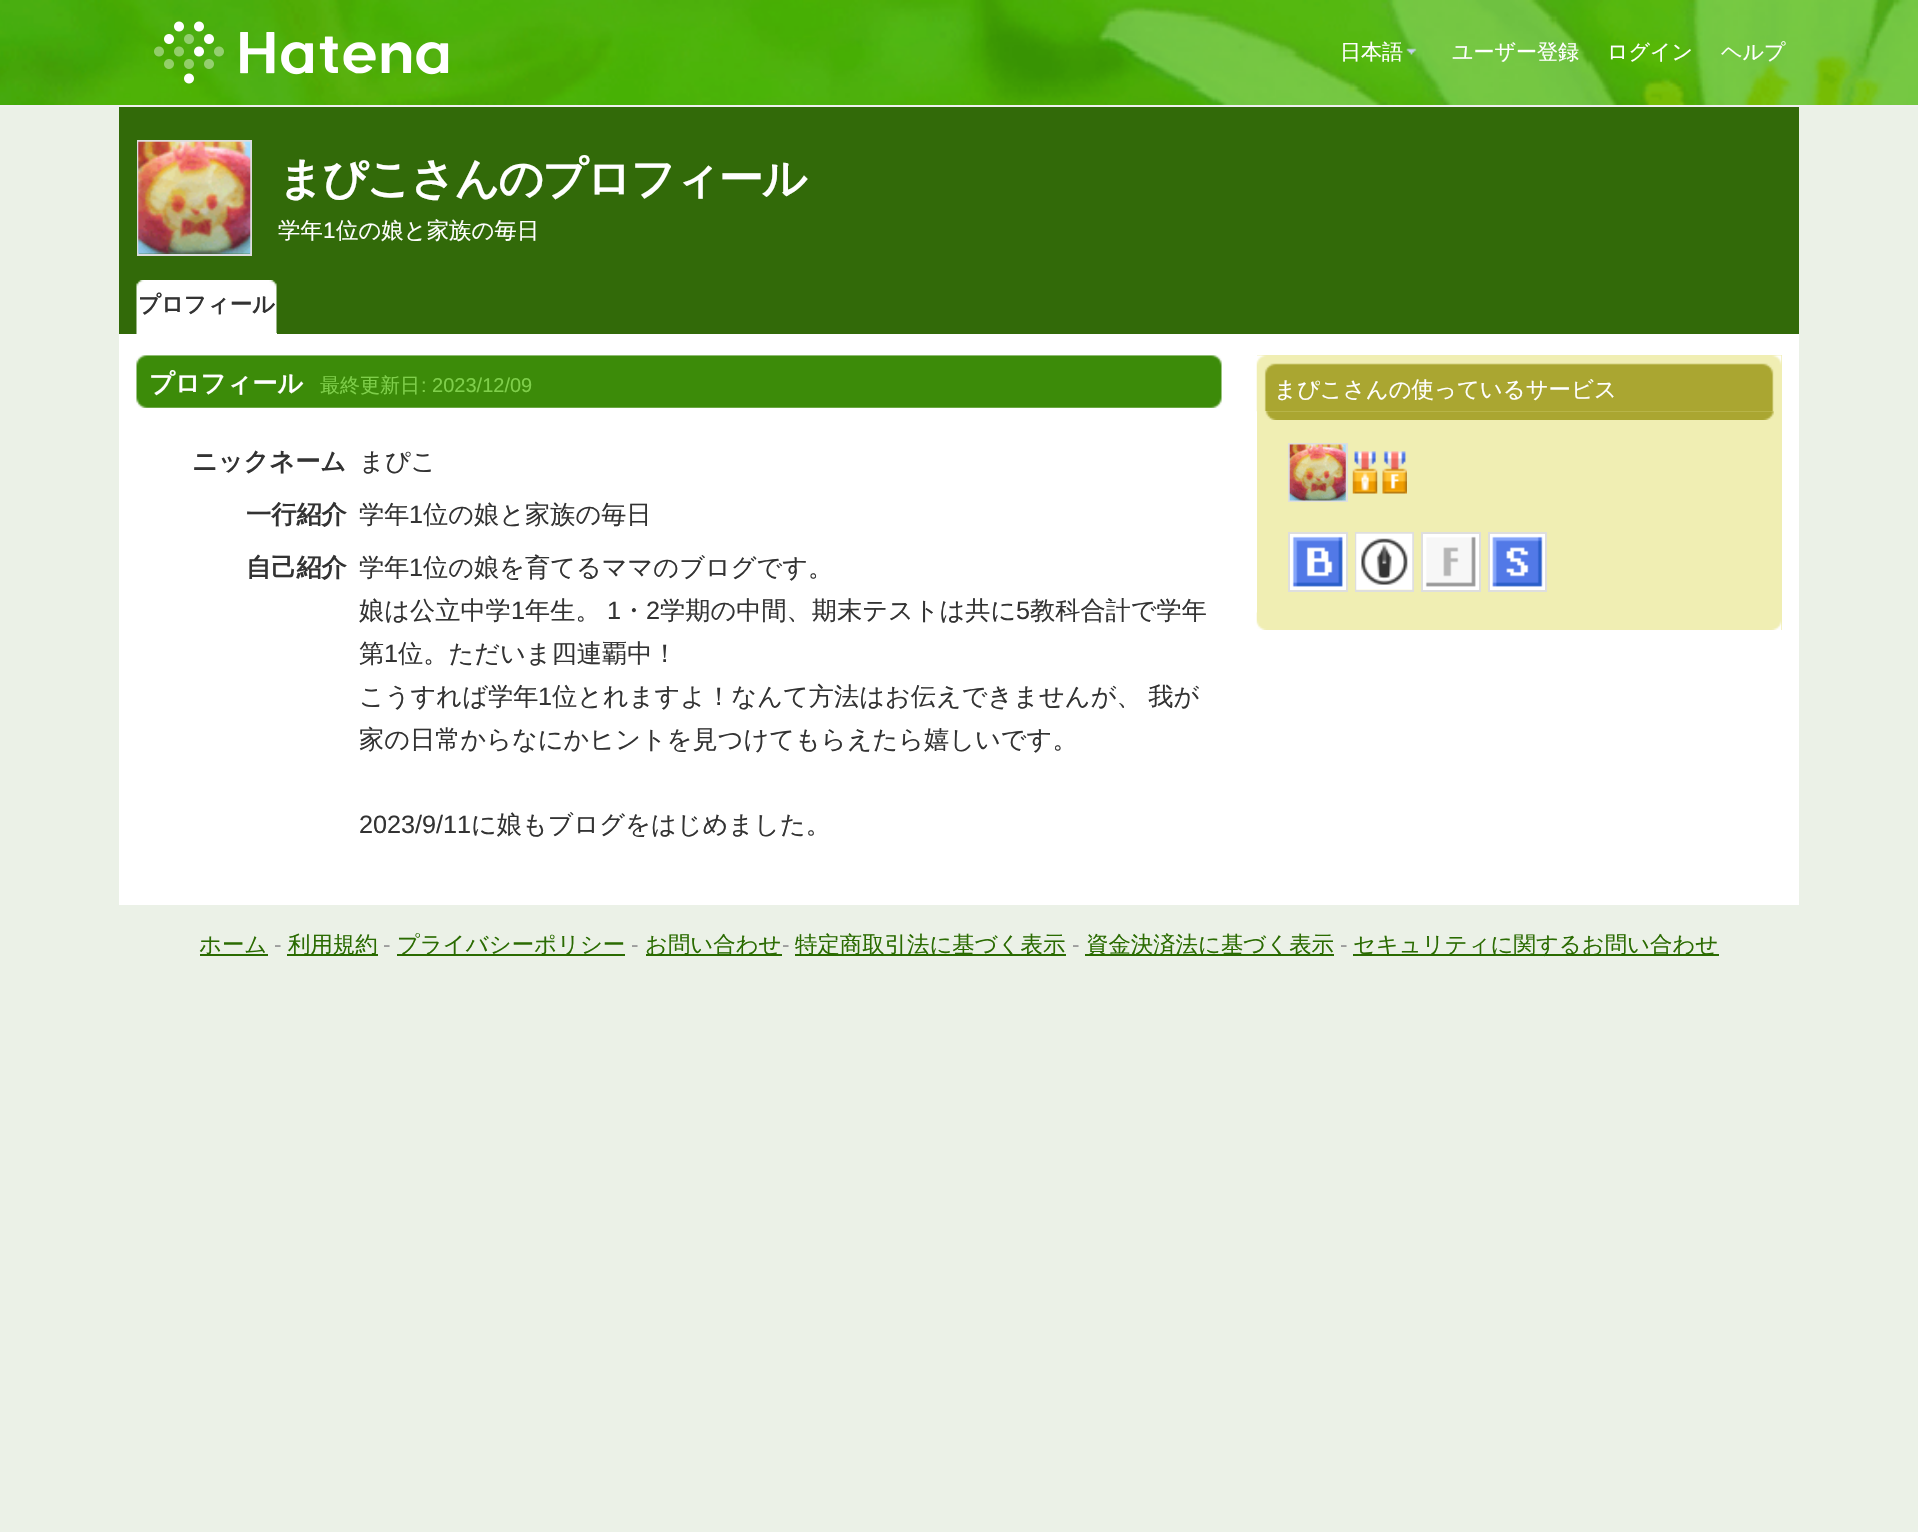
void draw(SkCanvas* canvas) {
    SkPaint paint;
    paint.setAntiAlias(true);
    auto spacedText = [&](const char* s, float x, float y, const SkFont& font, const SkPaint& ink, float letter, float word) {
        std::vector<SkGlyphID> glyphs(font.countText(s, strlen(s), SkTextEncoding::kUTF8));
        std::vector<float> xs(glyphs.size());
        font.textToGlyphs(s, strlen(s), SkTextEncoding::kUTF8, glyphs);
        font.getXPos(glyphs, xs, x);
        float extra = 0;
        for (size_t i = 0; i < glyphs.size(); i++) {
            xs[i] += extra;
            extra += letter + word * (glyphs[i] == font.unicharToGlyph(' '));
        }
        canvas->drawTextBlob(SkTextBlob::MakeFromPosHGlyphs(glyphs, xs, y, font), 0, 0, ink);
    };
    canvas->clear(0xFFEBF1E7);
    canvas->drawImageRect(SkImages::DeferredFromEncodedData(SkData::MakeFromFileName("img1.png")), SkRect::MakeXYWH(0, 0, 1918, 105), SkSamplingOptions());
    paint.setColor(0xFFF0F0F0);
    canvas->drawRect(SkRect::MakeXYWH(0, 105, 1918, 2), paint);
    canvas->drawImageRect(SkImages::DeferredFromEncodedData(SkData::MakeFromFileName("img2.png")), SkRect::MakeXYWH(154, 21, 295, 63), SkSamplingOptions());
    canvas->drawImageRect(SkImages::DeferredFromEncodedData(SkData::MakeFromFileName("img3.png")), SkRect::MakeXYWH(1406, 48, 11, 7), SkSamplingOptions());
    SkFont font1(fontMgr->matchFamilyStyle("WenQuanYi Zen Hei", SkFontStyle(500, SkFontStyle::kNormal_Width, SkFontStyle::kUpright_Slant)), 21);
    font1.setSubpixel(true);
    paint.setColor(0xFFFFFFFF);
    canvas->drawString("日本語", 1340, 59, font1, paint);
    canvas->drawString("ユーザー登録", 1452, 59, font1, paint);
    canvas->drawString("ログイン", 1607, 59, font1, paint);
    canvas->drawString("ヘルプ", 1721, 59, font1, paint);
    paint.setColor(0xFF326A09);
    canvas->drawRect(SkRect::MakeXYWH(119, 107, 1680, 227), paint);
    paint.setStyle(SkPaint::kStroke_Style);
    paint.setStrokeWidth(2);
    paint.setColor(0xFFDEDEDE);
    canvas->drawRect(SkRect::MakeXYWH(138, 141, 113, 114), paint);
    canvas->drawImageRect(SkImages::DeferredFromEncodedData(SkData::MakeFromFileName("img4.png")), SkRect::MakeXYWH(138, 141, 113, 113), SkSamplingOptions());
    SkFont font2(fontMgr->matchFamilyStyle("WenQuanYi Zen Hei", SkFontStyle::Bold()), 44.75f);
    font2.setSubpixel(true);
    paint.setStyle(SkPaint::kFill_Style);
    paint.setColor(0xFFFFFFFF);
    spacedText("まぴこさんのプロフィール", 278, 194, font2, paint, -1.75f, 0);
    SkFont font3(fontMgr->matchFamilyStyle("WenQuanYi Zen Hei", SkFontStyle(500, SkFontStyle::kNormal_Width, SkFontStyle::kUpright_Slant)), 22.4f);
    font3.setSubpixel(true);
    canvas->drawString("学年", 278, 238, font3, paint);
    SkFont font4(fontMgr->matchFamilyStyle("Liberation Sans", SkFontStyle::Normal()), 22.4f);
    font4.setSubpixel(true);
    canvas->drawString("1", 323, 238, font4, paint);
    canvas->drawString("位の娘と家族の毎日", 336, 238, font3, paint);
    canvas->drawImageRect(SkImages::DeferredFromEncodedData(SkData::MakeFromFileName("img5.png")), SkRect::MakeXYWH(136, 280, 141, 54), SkSamplingOptions());
    canvas->drawRect(SkRect::MakeXYWH(276, 333, 1, 1), paint);
    SkFont font5(fontMgr->matchFamilyStyle("WenQuanYi Zen Hei", SkFontStyle::Bold()), 22.4f);
    font5.setSubpixel(true);
    paint.setColor(0xFF333333);
    canvas->drawString("プロフィール", 138, 312, font5, paint);
    paint.setColor(0xFFFFFFFF);
    canvas->drawRect(SkRect::MakeXYWH(119, 334, 1680, 571), paint);
    canvas->drawImageRect(SkImages::DeferredFromEncodedData(SkData::MakeFromFileName("img6.png")), SkRect::MakeXYWH(136, 355, 1086, 53), SkSamplingOptions());
    SkFont font6(fontMgr->matchFamilyStyle("WenQuanYi Zen Hei", SkFontStyle::Bold()), 25.2f);
    font6.setSubpixel(true);
    canvas->drawString("プロフィール", 149, 392, font6, paint);
    SkFont font7(fontMgr->matchFamilyStyle("WenQuanYi Zen Hei", SkFontStyle(500, SkFontStyle::kNormal_Width, SkFontStyle::kUpright_Slant)), 20);
    font7.setSubpixel(true);
    paint.setColor(0xFF7FCF4B);
    canvas->drawString("最終更新日", 320, 392, font7, paint);
    SkFont font8(fontMgr->matchFamilyStyle("Liberation Sans", SkFontStyle::Normal()), 20);
    font8.setSubpixel(true);
    canvas->drawString(": 2023/12/09", 421, 392, font8, paint);
    paint.setColor(0xFF333333);
    canvas->drawString("ニックネーム", 192, 470, font6, paint);
    SkFont font9(fontMgr->matchFamilyStyle("WenQuanYi Zen Hei", SkFontStyle(500, SkFontStyle::kNormal_Width, SkFontStyle::kUpright_Slant)), 25.2f);
    font9.setSubpixel(true);
    canvas->drawString("まぴこ", 359, 470, font9, paint);
    canvas->drawString("一行紹介", 246, 523, font6, paint);
    canvas->drawString("学年", 359, 523, font9, paint);
    SkFont font10(fontMgr->matchFamilyStyle("Liberation Sans", SkFontStyle::Normal()), 25.2f);
    font10.setSubpixel(true);
    canvas->drawString("1", 409, 523, font10, paint);
    canvas->drawString("位の娘と家族の毎日", 423, 523, font9, paint);
    canvas->drawString("自己紹介", 246, 576, font6, paint);
    canvas->drawString("学年", 359, 576, font9, paint);
    canvas->drawString("1", 409, 576, font10, paint);
    canvas->drawString("位の娘を育てるママのブログです。", 423, 576, font9, paint);
    canvas->drawString("娘は公立中学", 359, 619, font9, paint);
    canvas->drawString("1", 511, 619, font10, paint);
    canvas->drawString("年生。", 525, 619, font9, paint);
    canvas->drawString("1", 607, 619, font10, paint);
    canvas->drawString("・", 621, 619, font9, paint);
    canvas->drawString("2", 646, 619, font10, paint);
    canvas->drawString("学期の中間、期末テストは共に", 660, 619, font9, paint);
    canvas->drawString("5", 1016, 619, font10, paint);
    canvas->drawString("教科合計で学年", 1030, 619, font9, paint);
    canvas->drawString("第", 359, 662, font9, paint);
    canvas->drawString("1", 384, 662, font10, paint);
    canvas->drawString("位。ただいま四連覇中！", 398, 662, font9, paint);
    canvas->drawString("こうすれば学年", 359, 705, font9, paint);
    canvas->drawString("1", 538, 705, font10, paint);
    spacedText("位とれますよ！なんて方法はお伝えできませんが、 我が", 552, 705, font9, paint, 0, -1);
    canvas->drawString("家の日常からなにかヒントを見つけてもらえたら嬉しいです。", 359, 748, font9, paint);
    canvas->drawString("2023/9/11", 359, 833, font10, paint);
    canvas->drawString("に娘もブログをはじめました。", 471, 833, font9, paint);
    paint.setColor(0xFFF0EEB3);
    canvas->drawRect(SkRect::MakeXYWH(1257, 355, 525, 275), paint);
    canvas->drawImageRect(SkImages::DeferredFromEncodedData(SkData::MakeFromFileName("img7.png")), SkRect::MakeXYWH(1256, 612, 526, 18), SkSamplingOptions());
    canvas->drawImageRect(SkImages::DeferredFromEncodedData(SkData::MakeFromFileName("img8.png")), SkRect::MakeXYWH(1256, 355, 526, 57), SkSamplingOptions());
    paint.setColor(0xFFFFFFFF);
    canvas->drawString("まぴこさんの使っているサービス", 1274, 397, font3, paint);
    canvas->drawImageRect(SkImages::DeferredFromEncodedData(SkData::MakeFromFileName("img9.png")), SkRect::MakeXYWH(1265, 411, 509, 9), SkSamplingOptions());
    paint.setStyle(SkPaint::kStroke_Style);
    paint.setColor(0xFFDEDEDE);
    canvas->drawRect(SkRect::MakeXYWH(1289, 444, 58, 57), paint);
    canvas->drawImageRect(SkImages::DeferredFromEncodedData(SkData::MakeFromFileName("img10.png")), SkRect::MakeXYWH(1289, 444, 57, 57), SkSamplingOptions());
    canvas->drawImageRect(SkImages::DeferredFromEncodedData(SkData::MakeFromFileName("img11.png")), SkRect::MakeXYWH(1352, 451, 26, 43), SkSamplingOptions());
    canvas->drawImageRect(SkImages::DeferredFromEncodedData(SkData::MakeFromFileName("img12.png")), SkRect::MakeXYWH(1382, 451, 25, 43), SkSamplingOptions());
    paint.setStyle(SkPaint::kFill_Style);
    paint.setColor(0xFFFFFFFF);
    canvas->drawRect(SkRect::MakeXYWH(1289, 533, 58, 58), paint);
    paint.setStyle(SkPaint::kStroke_Style);
    paint.setColor(0xFFDEDEDE);
    canvas->drawRect(SkRect::MakeXYWH(1289, 533, 58, 58), paint);
    canvas->drawImageRect(SkImages::DeferredFromEncodedData(SkData::MakeFromFileName("img13.png")), SkRect::MakeXYWH(1292, 536, 51, 51), SkSamplingOptions());
    canvas->drawRect(SkRect::MakeXYWH(1356, 533, 57, 58), paint);
    canvas->drawImageRect(SkImages::DeferredFromEncodedData(SkData::MakeFromFileName("img14.png")), SkRect::MakeXYWH(1356, 533, 57, 57), SkSamplingOptions());
    paint.setStyle(SkPaint::kFill_Style);
    paint.setColor(0xFFFFFFFF);
    canvas->drawRect(SkRect::MakeXYWH(1422, 533, 58, 58), paint);
    paint.setStyle(SkPaint::kStroke_Style);
    paint.setColor(0xFFDEDEDE);
    canvas->drawRect(SkRect::MakeXYWH(1422, 533, 58, 58), paint);
    canvas->drawImageRect(SkImages::DeferredFromEncodedData(SkData::MakeFromFileName("img15.png")), SkRect::MakeXYWH(1425, 536, 51, 51), SkSamplingOptions());
    paint.setStyle(SkPaint::kFill_Style);
    paint.setColor(0xFFFFFFFF);
    canvas->drawRect(SkRect::MakeXYWH(1489, 533, 57, 58), paint);
    paint.setStyle(SkPaint::kStroke_Style);
    paint.setColor(0xFFDEDEDE);
    canvas->drawRect(SkRect::MakeXYWH(1489, 533, 57, 58), paint);
    canvas->drawImageRect(SkImages::DeferredFromEncodedData(SkData::MakeFromFileName("img16.png")), SkRect::MakeXYWH(1492, 536, 51, 51), SkSamplingOptions());
    paint.setStyle(SkPaint::kFill_Style);
    paint.setColor(0xFF2A6B01);
    canvas->drawRect(SkRect::MakeXYWH(200, 954, 68, 2), paint);
    canvas->drawString("ホーム", 199, 952, font3, paint);
    paint.setColor(0xFF999999);
    canvas->drawString("-", 274, 952, font4, paint);
    paint.setColor(0xFF2A6B01);
    canvas->drawRect(SkRect::MakeXYWH(287, 954, 91, 2), paint);
    canvas->drawString("利用規約", 288, 952, font3, paint);
    paint.setColor(0xFF999999);
    canvas->drawString("-", 383, 952, font4, paint);
    paint.setColor(0xFF2A6B01);
    canvas->drawRect(SkRect::MakeXYWH(397, 954, 228, 2), paint);
    canvas->drawString("プライバシーポリシー", 397, 952, font3, paint);
    paint.setColor(0xFF999999);
    canvas->drawString("-", 631, 952, font4, paint);
    paint.setColor(0xFF2A6B01);
    canvas->drawRect(SkRect::MakeXYWH(646, 954, 136, 2), paint);
    canvas->drawString("お問い合わせ", 645, 952, font3, paint);
    paint.setColor(0xFF999999);
    canvas->drawString("-", 782, 952, font4, paint);
    paint.setColor(0xFF2A6B01);
    canvas->drawRect(SkRect::MakeXYWH(795, 954, 271, 2), paint);
    canvas->drawString("特定商取引法に基づく表示", 795, 952, font3, paint);
    paint.setColor(0xFF999999);
    canvas->drawString("-", 1072, 952, font4, paint);
    paint.setColor(0xFF2A6B01);
    canvas->drawRect(SkRect::MakeXYWH(1085, 954, 249, 2), paint);
    canvas->drawString("資金決済法に基づく表示", 1086, 952, font3, paint);
    paint.setColor(0xFF999999);
    canvas->drawString("-", 1340, 952, font4, paint);
    paint.setColor(0xFF2A6B01);
    canvas->drawRect(SkRect::MakeXYWH(1353, 954, 366, 2), paint);
    canvas->drawString("セキュリティに関するお問い合わせ", 1353, 952, font3, paint);
}
